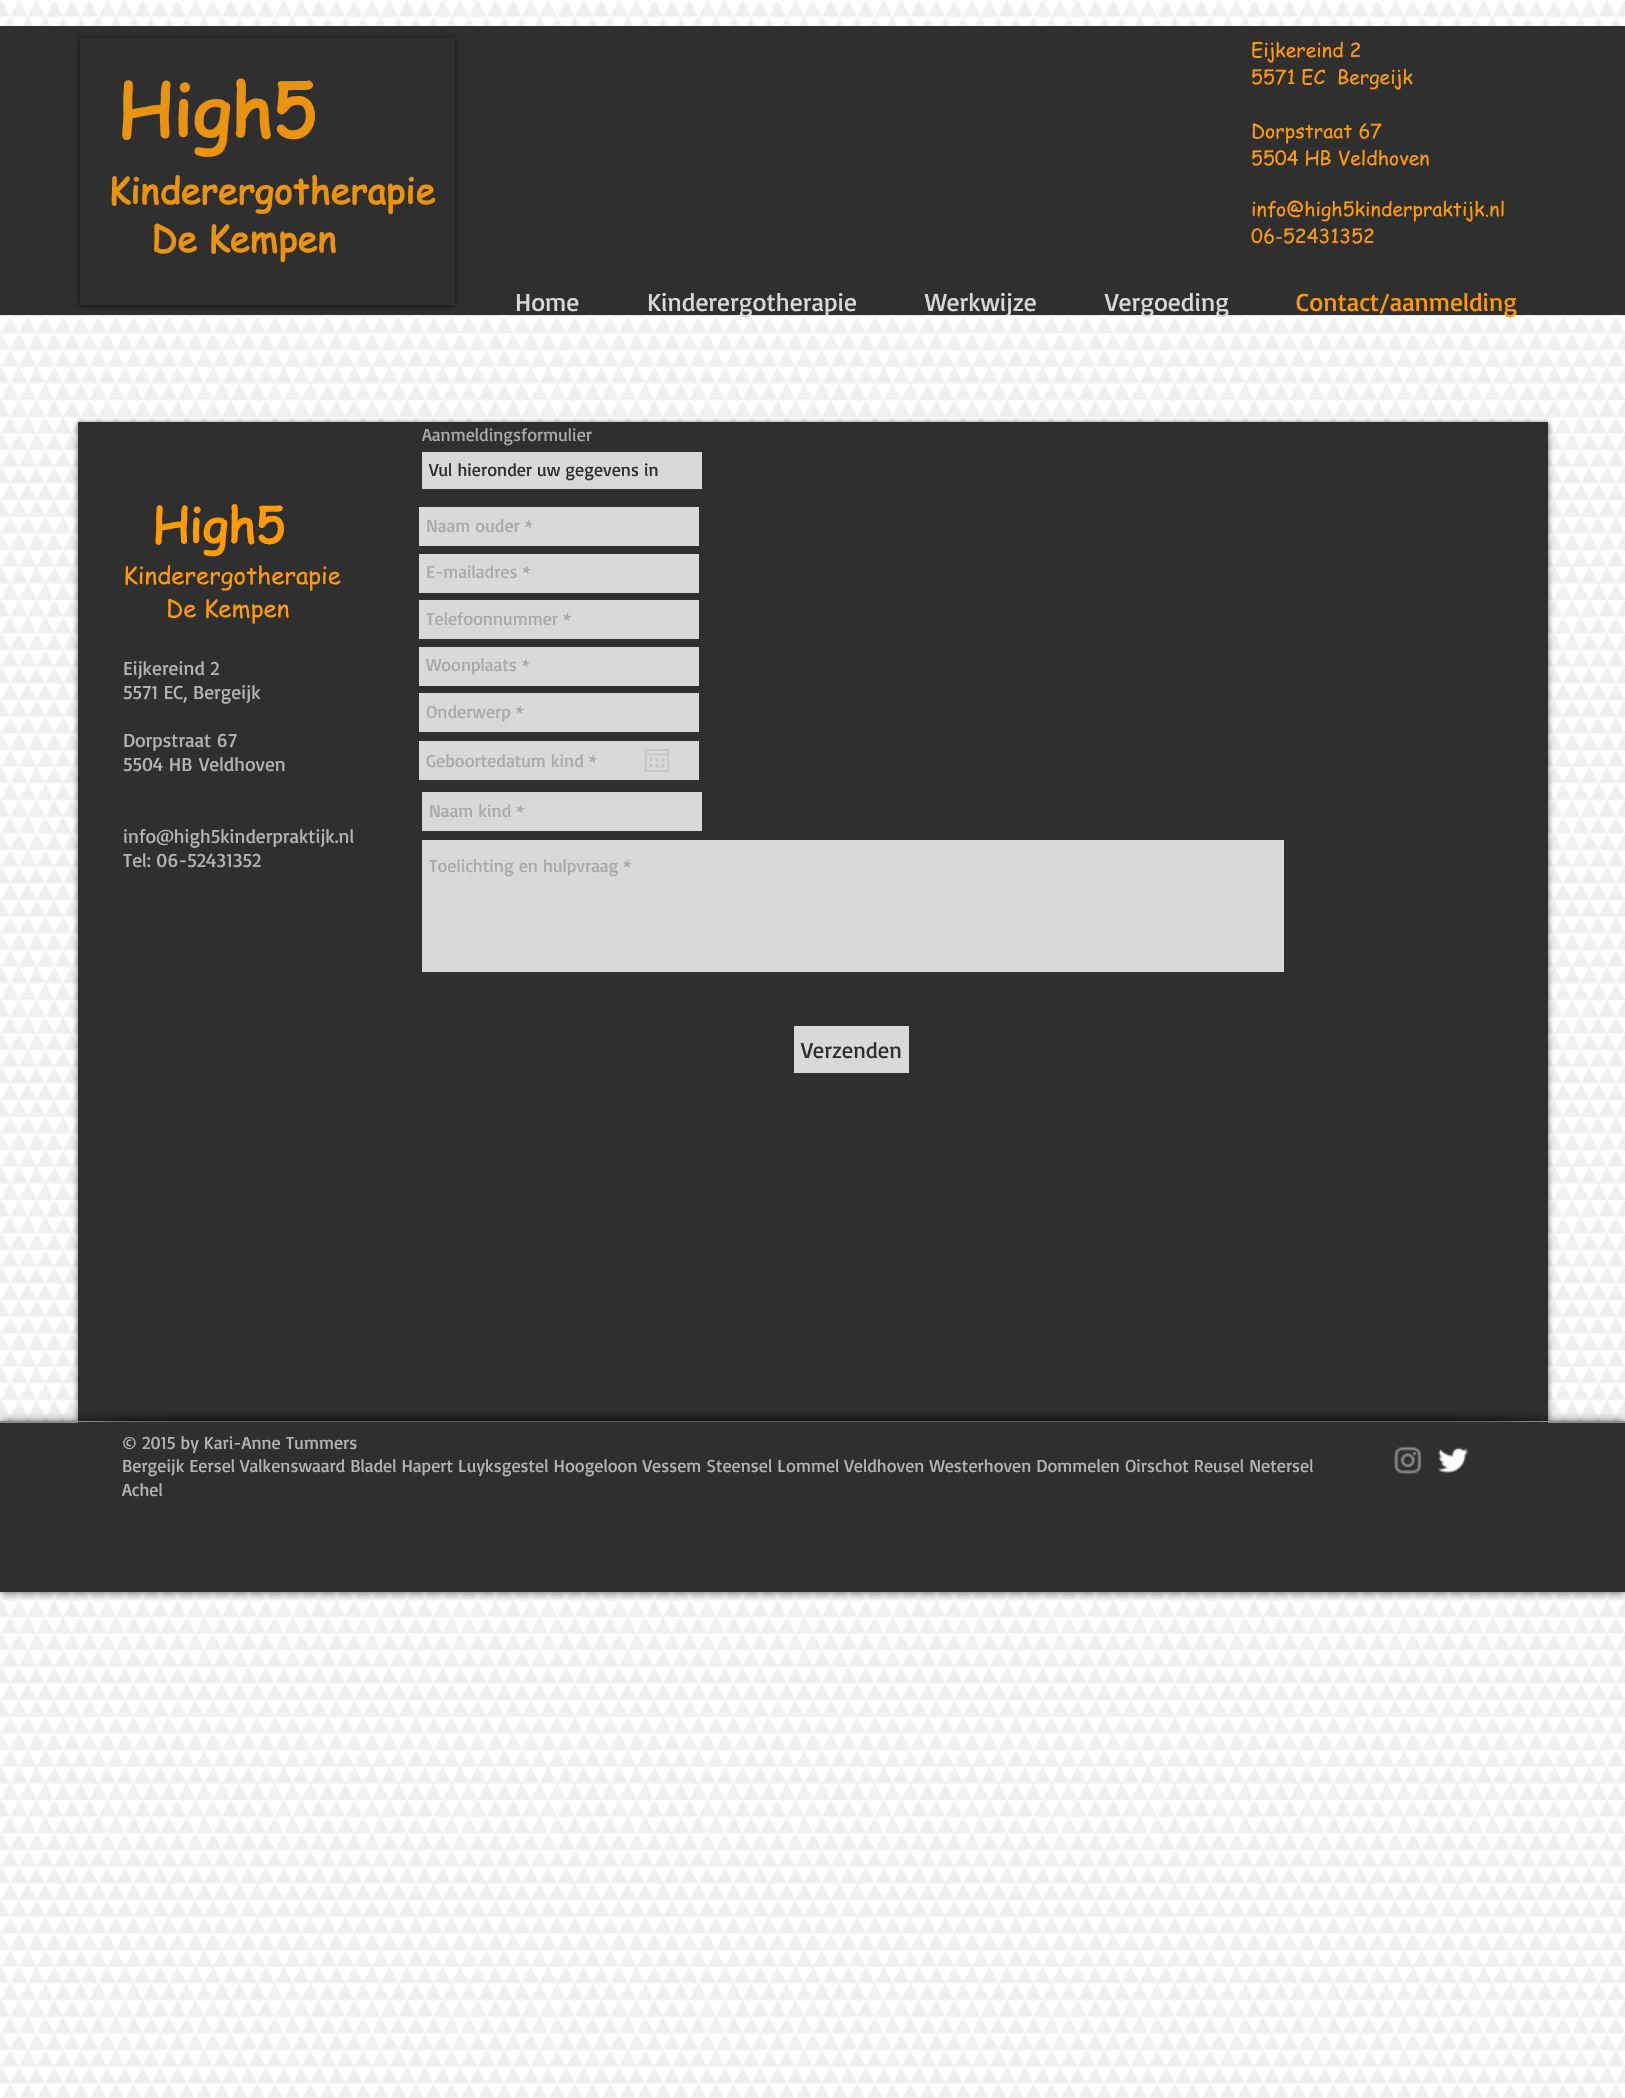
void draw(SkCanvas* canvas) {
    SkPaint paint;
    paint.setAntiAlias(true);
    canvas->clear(0xFFFFFFFF);
    canvas->drawImageRect(SkImages::DeferredFromEncodedData(SkData::MakeFromFileName("img1.png")), SkRect::MakeXYWH(0, 0, 1625, 2098), SkSamplingOptions());
    paint.setColor(0xFF2F2F2F);
    canvas->drawRect(SkRect::MakeXYWH(0, 26, 1625, 289), paint);
    paint.setColor(0x99000000);
    paint.setMaskFilter(SkMaskFilter::MakeBlur(kNormal_SkBlurStyle, 3));
    canvas->drawRect(SkRect::MakeXYWH(80, 39, 375, 267), paint);
    paint.setMaskFilter(nullptr);
    paint.setColor(0xFF2F2F2F);
    canvas->drawRect(SkRect::MakeXYWH(80, 38, 375, 267), paint);
    SkFont font1(fontMgr->matchFamilyStyle("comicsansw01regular", SkFontStyle::Bold()), 72);
    font1.setSubpixel(true);
    paint.setColor(0xFFE99310);
    canvas->drawString("High5", 117, 137, font1, paint);
    SkFont font2(fontMgr->matchFamilyStyle("comicsansw01regular", SkFontStyle::Bold()), 36);
    font2.setSubpixel(true);
    canvas->drawString("Kinderergotherapie", 108, 204, font2, paint);
    canvas->drawString("De Kempen", 151, 252, font2, paint);
    SkFont font3(fontMgr->matchFamilyStyle("comicsansw01regular", SkFontStyle::Normal()), 19.5f);
    font3.setSubpixel(true);
    paint.setColor(0xFFFF9B05);
    canvas->drawString("Eijkereind 2", 1251, 57, font3, paint);
    canvas->drawString("5571 EC  Bergeijk", 1251, 84, font3, paint);
    canvas->drawString("Dorpstraat 67", 1251, 138, font3, paint);
    canvas->drawString("5504 HB Veldhoven", 1251, 165, font3, paint);
    canvas->drawString("info@high5kinderpraktijk.nl", 1251, 216, font3, paint);
    canvas->drawString("06-52431352", 1251, 243, font3, paint);
    SkFont font4(fontMgr->matchFamilyStyle("Basic", SkFontStyle::Normal()), 25.5f);
    font4.setSubpixel(true);
    paint.setColor(0xFFD9D9D9);
    canvas->drawString("Home", 515, 311, font4, paint);
    canvas->drawString("Kinderergotherapie", 647, 311, font4, paint);
    canvas->drawString("Werkwijze", 925, 311, font4, paint);
    canvas->drawString("Vergoeding", 1105, 311, font4, paint);
    paint.setColor(0xFFFF9B05);
    canvas->drawString("Contact/aanmelding", 1296, 311, font4, paint);
    paint.setColor(0x99000000);
    paint.setMaskFilter(SkMaskFilter::MakeBlur(kNormal_SkBlurStyle, 3));
    canvas->drawRect(SkRect::MakeXYWH(78, 423, 1470, 999), paint);
    paint.setMaskFilter(nullptr);
    paint.setColor(0xFF2F2F2F);
    canvas->drawRect(SkRect::MakeXYWH(78, 422, 1470, 999), paint);
    SkFont font5(fontMgr->matchFamilyStyle("Basic", SkFontStyle::Normal()), 18);
    font5.setSubpixel(true);
    paint.setColor(0xFFA9A9A9);
    canvas->drawString("Aanmeldingsformulier", 422, 441, font5, paint);
    paint.setColor(0xFFD9D9D9);
    canvas->drawRect(SkRect::MakeXYWH(422, 452, 280, 37), paint);
    paint.setColor(0xFF2F2F2F);
    canvas->drawString("Vul hieronder uw gegevens in", 429, 476, font5, paint);
    SkFont font6(fontMgr->matchFamilyStyle("comicsansw01regular", SkFontStyle::Bold()), 48);
    font6.setSubpixel(true);
    paint.setColor(0xFFFF9B05);
    canvas->drawString("High5", 152, 543, font6, paint);
    SkFont font7(fontMgr->matchFamilyStyle("comicsansw01regular", SkFontStyle::Normal()), 24);
    font7.setSubpixel(true);
    canvas->drawString("Kinderergotherapie", 123, 584, font7, paint);
    canvas->drawString("De Kempen", 166, 617, font7, paint);
    SkFont font8(fontMgr->matchFamilyStyle("Basic", SkFontStyle::Normal()), 19.5f);
    font8.setSubpixel(true);
    paint.setColor(0xFFB3B3B3);
    canvas->drawString("Eijkereind 2", 123, 675, font8, paint);
    canvas->drawString("5571 EC, Bergeijk", 123, 699, font8, paint);
    canvas->drawString("Dorpstraat 67", 123, 747, font8, paint);
    canvas->drawString("5504 HB", 123, 771, font8, paint);
    canvas->drawString("Veldhoven", 199, 771, font8, paint);
    canvas->drawString("info@high5kinderpraktijk.nl", 123, 843, font8, paint);
    canvas->drawString("Tel: 06-52431352", 123, 867, font8, paint);
    paint.setColor(0xFFD9D9D9);
    canvas->drawRect(SkRect::MakeXYWH(419, 507, 280, 39), paint);
    paint.setColor(0xFFA9A9A9);
    canvas->drawString("Naam ouder *", 426, 532, font5, paint);
    paint.setColor(0xFFD9D9D9);
    canvas->drawRect(SkRect::MakeXYWH(419, 554, 280, 39), paint);
    paint.setColor(0xFFA9A9A9);
    canvas->drawString("E-mailadres *", 426, 578, font5, paint);
    paint.setColor(0xFFD9D9D9);
    canvas->drawRect(SkRect::MakeXYWH(419, 600, 280, 39), paint);
    paint.setColor(0xFFA9A9A9);
    canvas->drawString("Telefoonnummer *", 426, 625, font5, paint);
    paint.setColor(0xFFD9D9D9);
    canvas->drawRect(SkRect::MakeXYWH(419, 647, 280, 39), paint);
    paint.setColor(0xFFA9A9A9);
    canvas->drawString("Woonplaats *", 426, 671, font5, paint);
    paint.setColor(0xFFD9D9D9);
    canvas->drawRect(SkRect::MakeXYWH(419, 693, 280, 39), paint);
    paint.setColor(0xFFA9A9A9);
    canvas->drawString("Onderwerp *", 426, 718, font5, paint);
    paint.setColor(0xFFD9D9D9);
    canvas->drawRect(SkRect::MakeXYWH(419, 741, 280, 39), paint);
    paint.setColor(0xFFA9A9A9);
    canvas->drawString("Geboortedatum kind *", 426, 767, font5, paint);
    canvas->drawImageRect(SkImages::DeferredFromEncodedData(SkData::MakeFromFileName("img2.png")), SkRect::MakeXYWH(645, 749, 24, 23), SkSamplingOptions());
    paint.setColor(0xFFD9D9D9);
    canvas->drawRect(SkRect::MakeXYWH(422, 792, 280, 39), paint);
    paint.setColor(0xFFA9A9A9);
    canvas->drawString("Naam kind *", 429, 817, font5, paint);
    paint.setColor(0xFFD9D9D9);
    canvas->drawRect(SkRect::MakeXYWH(422, 840, 862, 132), paint);
    paint.setColor(0xFFA9A9A9);
    canvas->drawString("Toelichting en hulpvraag *", 429, 872, font5, paint);
    paint.setColor(0xFFD9D9D9);
    canvas->drawRect(SkRect::MakeXYWH(794, 1026, 115, 47), paint);
    SkFont font9(fontMgr->matchFamilyStyle("Basic", SkFontStyle::Normal()), 22.5f);
    font9.setSubpixel(true);
    paint.setColor(0xFF2F2F2F);
    canvas->drawString("Verzenden", 801, 1058, font9, paint);
    paint.setColor(0xB3000000);
    paint.setMaskFilter(SkMaskFilter::MakeBlur(kNormal_SkBlurStyle, 4));
    canvas->drawRect(SkRect::MakeXYWH(0, 1421, 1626, 171), paint);
    paint.setMaskFilter(nullptr);
    paint.setColor(0xFF2F2F2F);
    canvas->drawRect(SkRect::MakeXYWH(0, 1423, 1625, 169), paint);
    paint.setColor(0xFF8D8D8D);
    canvas->drawRect(SkRect::MakeXYWH(0, 1421, 1625, 2), paint);
    paint.setColor(0xFF2F2F2F);
    canvas->drawRect(SkRect::MakeXYWH(78, 1422, 1470, 1), paint);
    canvas->drawImageRect(SkImages::DeferredFromEncodedData(SkData::MakeFromFileName("img3.png")), SkRect::MakeXYWH(86, 1410, 142, 12), SkSamplingOptions());
    canvas->drawImageRect(SkImages::DeferredFromEncodedData(SkData::MakeFromFileName("img4.png")), SkRect::MakeXYWH(228, 1410, 1170, 12), SkSamplingOptions());
    canvas->drawImageRect(SkImages::DeferredFromEncodedData(SkData::MakeFromFileName("img5.png")), SkRect::MakeXYWH(1398, 1410, 142, 12), SkSamplingOptions());
    paint.setColor(0xFFB3B3B3);
    canvas->drawString("© 2015 by Kari-Anne Tummers", 122, 1449, font5, paint);
    canvas->drawString("Bergeijk Eersel Valkenswaard Bladel Hapert Luyksgestel Hoogeloon Vessem Steensel Lommel Veldhoven Westerhoven Dommelen Oirschot Reusel Netersel", 122, 1472, font5, paint);
    canvas->drawString("Achel", 122, 1496, font5, paint);
    canvas->drawImageRect(SkImages::DeferredFromEncodedData(SkData::MakeFromFileName("img6.png")), SkRect::MakeXYWH(1394, 1446, 28, 29), SkSamplingOptions());
    canvas->drawImageRect(SkImages::DeferredFromEncodedData(SkData::MakeFromFileName("img7.png")), SkRect::MakeXYWH(1438, 1447, 31, 27), SkSamplingOptions());
}
